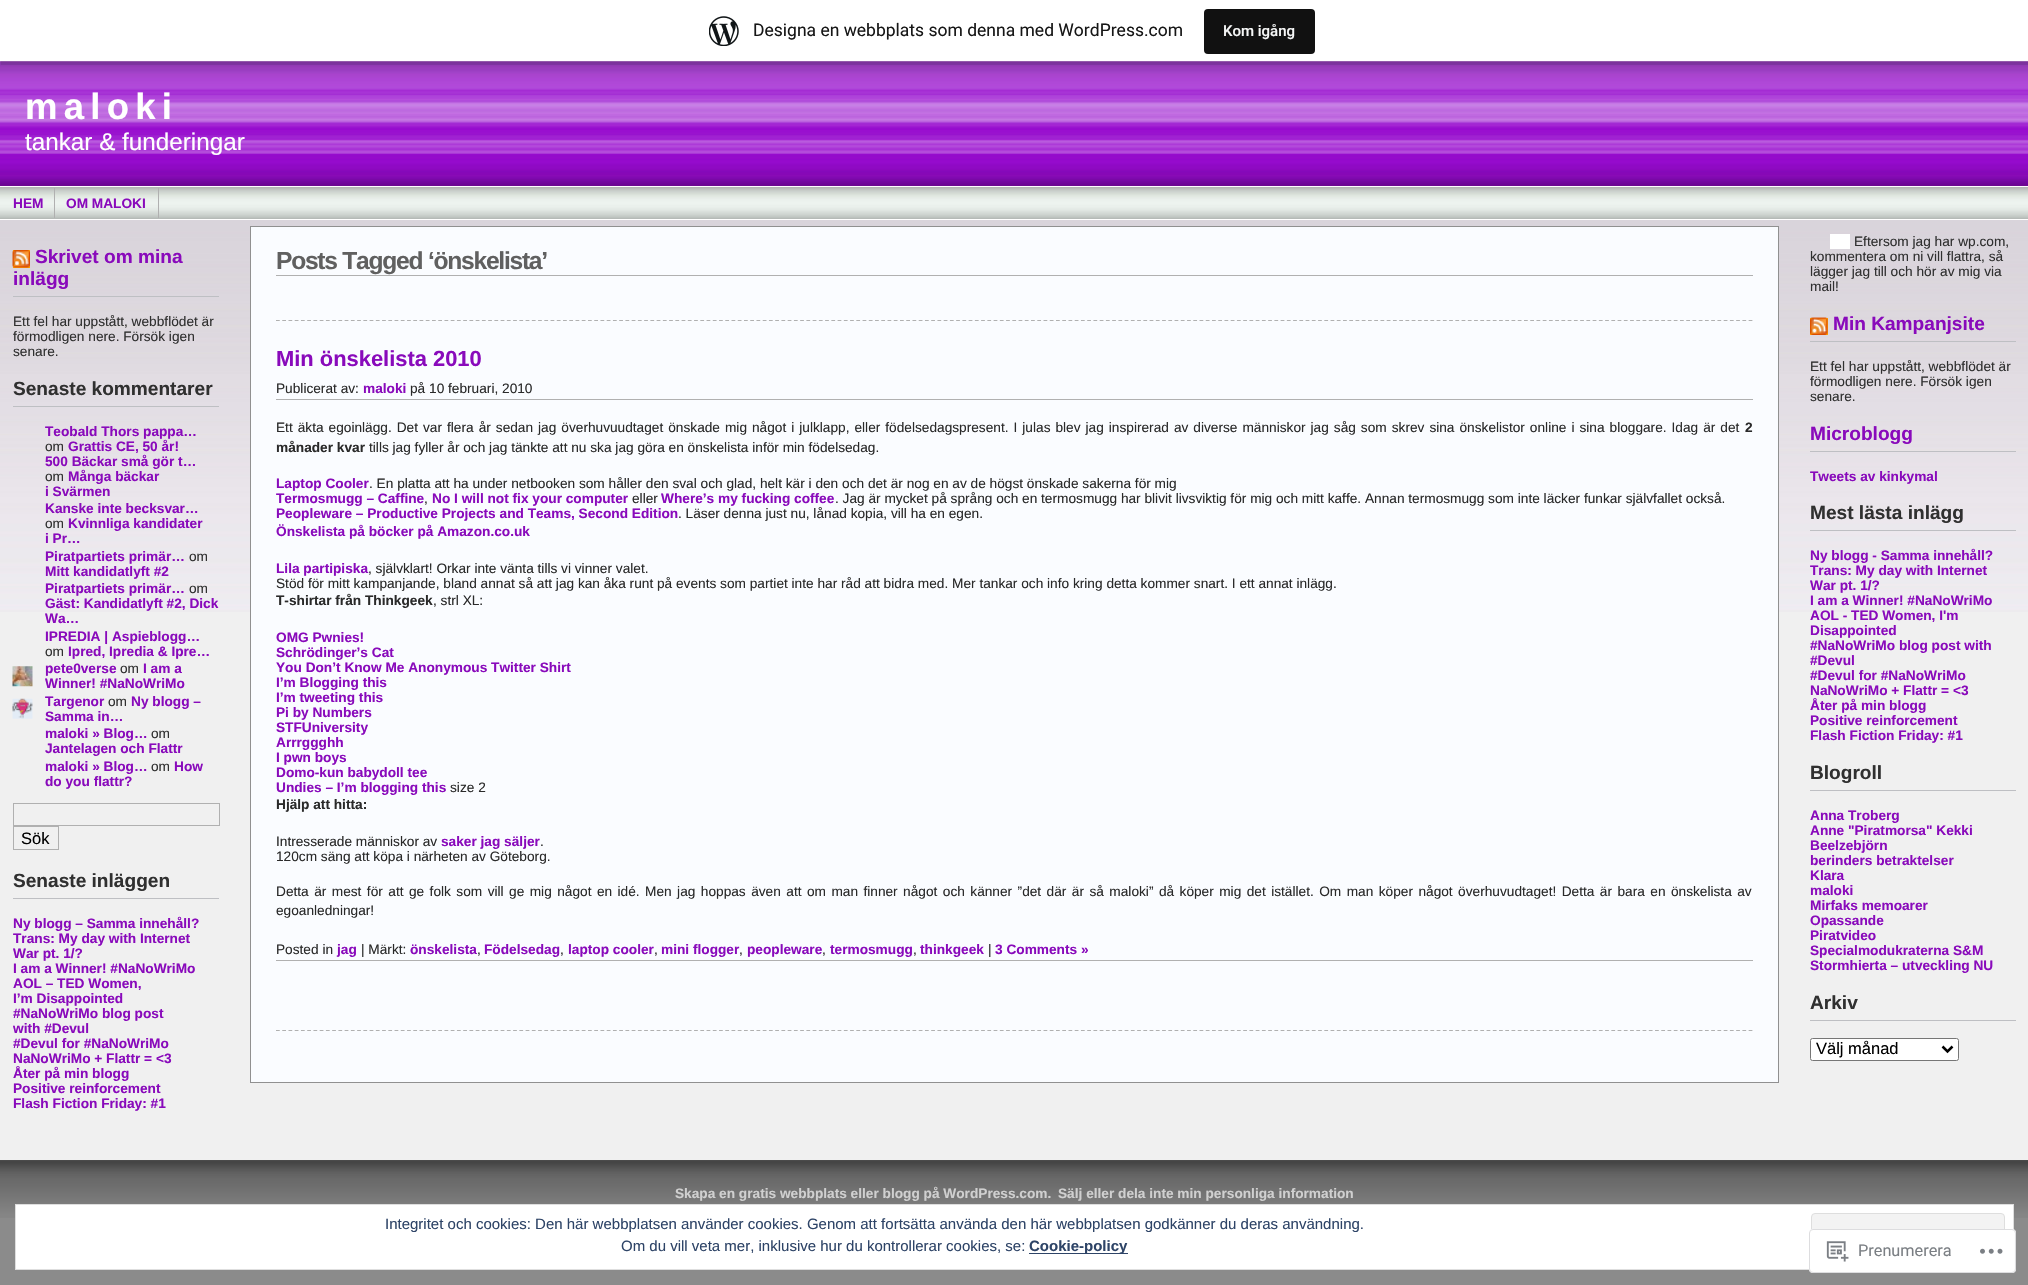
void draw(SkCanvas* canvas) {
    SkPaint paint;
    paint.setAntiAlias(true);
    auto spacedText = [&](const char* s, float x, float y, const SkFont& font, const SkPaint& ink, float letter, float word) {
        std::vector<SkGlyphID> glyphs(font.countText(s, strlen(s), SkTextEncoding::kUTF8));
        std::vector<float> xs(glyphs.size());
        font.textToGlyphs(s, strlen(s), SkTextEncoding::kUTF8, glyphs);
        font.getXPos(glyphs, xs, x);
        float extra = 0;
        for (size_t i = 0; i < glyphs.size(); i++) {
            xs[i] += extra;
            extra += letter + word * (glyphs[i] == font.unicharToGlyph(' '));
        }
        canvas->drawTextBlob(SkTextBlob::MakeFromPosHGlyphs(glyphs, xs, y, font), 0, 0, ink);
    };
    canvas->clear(0xFF8B8B8B);
    paint.setColor(0xFFF0F0F0);
    canvas->drawRect(SkRect::MakeXYWH(0, 61, 2028, 1099), paint);
    canvas->drawImageRect(SkImages::DeferredFromEncodedData(SkData::MakeFromFileName("img2.png")), SkRect::MakeXYWH(0, 61, 2028, 551), SkSamplingOptions());
    paint.setColor(0x14000000);
    canvas->drawPath(SkPathBuilder().moveTo(1, 61).lineTo(1, 65).lineTo(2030, 65).lineTo(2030, 4).lineTo(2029, 4).lineTo(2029, 61).close().detach(), paint);
    paint.setColor(0xFFFFFFFF);
    canvas->drawRect(SkRect::MakeXYWH(0, 0, 2028, 61), paint);
    canvas->drawImageRect(SkImages::DeferredFromEncodedData(SkData::MakeFromFileName("img1.png")), SkRect::MakeXYWH(709, 16, 30, 30), SkSamplingOptions());
    SkFont font1(fontMgr->matchFamilyStyle("Roboto", SkFontStyle::Normal()), 17.5f);
    font1.setSubpixel(true);
    paint.setColor(0xFF171717);
    canvas->drawString("Designa en webbplats som denna med WordPress.com", 753, 36, font1, paint);
    paint.setColor(0xFF111111);
    canvas->drawRoundRect(SkRect::MakeXYWH(1204, 9, 111, 45), 4, 4, paint);
    SkFont font2(fontMgr->matchFamilyStyle("Roboto", SkFontStyle(500, SkFontStyle::kNormal_Width, SkFontStyle::kUpright_Slant)), 15);
    font2.setSubpixel(true);
    paint.setColor(0xFFF6F7F7);
    canvas->drawString("Kom igång", 1223, 36, font2, paint);
    SkFont font3(fontMgr->matchFamilyStyle("Liberation Sans", SkFontStyle::Bold()), 36.5f);
    font3.setSubpixel(true);
    paint.setColor(0xFFFFFFFF);
    spacedText("maloki", 25, 119, font3, paint, 6.25f, 0);
    SkFont font4(fontMgr->matchFamilyStyle("Liberation Sans", SkFontStyle::Normal()), 24.25f);
    font4.setSubpixel(true);
    canvas->drawString("tankar & funderingar", 25, 150, font4, paint);
    paint.setColor(0xFFB0B0B0);
    canvas->drawRect(SkRect::MakeXYWH(0, 187, 2028, 32), paint);
    canvas->drawImageRect(SkImages::DeferredFromEncodedData(SkData::MakeFromFileName("img3.png")), SkRect::MakeXYWH(0, 187, 2028, 32), SkSamplingOptions());
    paint.setColor(0xFFFFFFFF);
    canvas->drawRect(SkRect::MakeXYWH(0, 186, 2028, 1), paint);
    canvas->drawRect(SkRect::MakeXYWH(0, 219, 2028, 1), paint);
    SkFont font5(fontMgr->matchFamilyStyle("Liberation Sans", SkFontStyle::Bold()), 13.68f);
    font5.setSubpixel(true);
    paint.setColor(0xFF890ABB);
    canvas->drawString("HEM", 13, 208, font5, paint);
    paint.setColor(0xFFB0B0B0);
    canvas->drawRect(SkRect::MakeXYWH(54, 188, 1, 30), paint);
    paint.setColor(0xFF890ABB);
    canvas->drawString("OM MALOKI", 66, 208, font5, paint);
    paint.setColor(0xFFB0B0B0);
    canvas->drawRect(SkRect::MakeXYWH(158, 188, 1, 30), paint);
    paint.setColor(0xFFBEBFC3);
    canvas->drawRect(SkRect::MakeXYWH(13, 296, 206, 1), paint);
    paint.setColor(0xFFFFA500);
    canvas->drawRect(SkRect::MakeXYWH(13, 250, 17, 18), paint);
    canvas->drawImageRect(SkImages::DeferredFromEncodedData(SkData::MakeFromFileName("img4.png")), SkRect::MakeXYWH(12, 250, 18, 18), SkSamplingOptions());
    SkFont font6(fontMgr->matchFamilyStyle("Liberation Sans", SkFontStyle::Bold()), 19.1f);
    font6.setSubpixel(true);
    paint.setColor(0xFF890ABB);
    canvas->drawString("Skrivet om mina", 35, 263, font6, paint);
    canvas->drawString("inlägg", 13, 285, font6, paint);
    SkFont font7(fontMgr->matchFamilyStyle("Liberation Sans", SkFontStyle::Normal()), 13.68f);
    font7.setSubpixel(true);
    paint.setColor(0xFF303030);
    canvas->drawString("Ett fel har uppstått, webbflödet är", 13, 326, font7, paint);
    canvas->drawString("förmodligen nere. Försök igen", 13, 341, font7, paint);
    canvas->drawString("senare.", 13, 356, font7, paint);
    paint.setColor(0xFFBEBFC3);
    canvas->drawRect(SkRect::MakeXYWH(13, 406, 206, 1), paint);
    paint.setColor(0xFF303030);
    canvas->drawString("Senaste kommentarer", 13, 395, font6, paint);
    paint.setColor(0xFF890ABB);
    canvas->drawString("Teobald Thors pappa…", 45, 436, font5, paint);
    paint.setColor(0xFF303030);
    canvas->drawString("om", 45, 451, font7, paint);
    paint.setColor(0xFF890ABB);
    canvas->drawString("Grattis CE, 50 år!", 68, 451, font5, paint);
    canvas->drawString("500 Bäckar små gör t…", 45, 466, font5, paint);
    paint.setColor(0xFF303030);
    canvas->drawString("om", 45, 481, font7, paint);
    paint.setColor(0xFF890ABB);
    canvas->drawString("Många bäckar", 68, 481, font5, paint);
    canvas->drawString("i Svärmen", 45, 496, font5, paint);
    canvas->drawString("Kanske inte becksvar…", 45, 513, font5, paint);
    paint.setColor(0xFF303030);
    canvas->drawString("om", 45, 528, font7, paint);
    paint.setColor(0xFF890ABB);
    canvas->drawString("Kvinnliga kandidater", 68, 528, font5, paint);
    canvas->drawString("i Pr…", 45, 543, font5, paint);
    canvas->drawString("Piratpartiets primär…", 45, 561, font5, paint);
    paint.setColor(0xFF303030);
    canvas->drawString("om", 189, 561, font7, paint);
    paint.setColor(0xFF890ABB);
    canvas->drawString("Mitt kandidatlyft #2", 45, 576, font5, paint);
    canvas->drawString("Piratpartiets primär…", 45, 593, font5, paint);
    paint.setColor(0xFF303030);
    canvas->drawString("om", 189, 593, font7, paint);
    paint.setColor(0xFF890ABB);
    canvas->drawString("Gäst: Kandidatlyft #2, Dick", 45, 608, font5, paint);
    canvas->drawString("Wa…", 45, 623, font5, paint);
    canvas->drawString("IPREDIA | Aspieblogg…", 45, 641, font5, paint);
    paint.setColor(0xFF303030);
    canvas->drawString("om", 45, 656, font7, paint);
    paint.setColor(0xFF890ABB);
    canvas->drawString("Ipred, Ipredia & Ipre…", 68, 656, font5, paint);
    canvas->drawImageRect(SkImages::DeferredFromEncodedData(SkData::MakeFromFileName("img5.png")), SkRect::MakeXYWH(12, 666, 21, 21), SkSamplingOptions());
    canvas->drawString("pete0verse", 45, 673, font5, paint);
    paint.setColor(0xFF303030);
    canvas->drawString("om", 120, 673, font7, paint);
    paint.setColor(0xFF890ABB);
    canvas->drawString("I am a", 143, 673, font5, paint);
    canvas->drawString("Winner! #NaNoWriMo", 45, 688, font5, paint);
    canvas->drawImageRect(SkImages::DeferredFromEncodedData(SkData::MakeFromFileName("img6.png")), SkRect::MakeXYWH(12, 698, 21, 21), SkSamplingOptions());
    canvas->drawString("Targenor", 45, 706, font5, paint);
    paint.setColor(0xFF303030);
    canvas->drawString("om", 108, 706, font7, paint);
    paint.setColor(0xFF890ABB);
    canvas->drawString("Ny blogg –", 131, 706, font5, paint);
    canvas->drawString("Samma in…", 45, 721, font5, paint);
    canvas->drawString("maloki » Blog…", 45, 738, font5, paint);
    paint.setColor(0xFF303030);
    canvas->drawString("om", 151, 738, font7, paint);
    paint.setColor(0xFF890ABB);
    canvas->drawString("Jantelagen och Flattr", 45, 753, font5, paint);
    canvas->drawString("maloki » Blog…", 45, 771, font5, paint);
    paint.setColor(0xFF303030);
    canvas->drawString("om", 151, 771, font7, paint);
    paint.setColor(0xFF890ABB);
    canvas->drawString("How", 174, 771, font5, paint);
    canvas->drawString("do you flattr?", 45, 786, font5, paint);
    paint.setStyle(SkPaint::kStroke_Style);
    paint.setStrokeWidth(1);
    paint.setColor(0xFFB0B0B0);
    canvas->drawRect(SkRect::MakeXYWH(13.5f, 803.5f, 206, 22), paint);
    canvas->drawRect(SkRect::MakeXYWH(13.5f, 826.5f, 45, 23), paint);
    SkFont font8(fontMgr->matchFamilyStyle("Liberation Sans", SkFontStyle::Normal()), 16.5f);
    font8.setSubpixel(true);
    paint.setStyle(SkPaint::kFill_Style);
    paint.setColor(0xFF000000);
    canvas->drawString("Sök", 21, 844, font8, paint);
    paint.setColor(0xFFBEBFC3);
    canvas->drawRect(SkRect::MakeXYWH(13, 898, 206, 1), paint);
    paint.setColor(0xFF303030);
    canvas->drawString("Senaste inläggen", 13, 887, font6, paint);
    paint.setColor(0xFF890ABB);
    canvas->drawString("Ny blogg – Samma innehåll?", 13, 928, font5, paint);
    canvas->drawString("Trans: My day with Internet", 13, 943, font5, paint);
    canvas->drawString("War pt. 1/?", 13, 958, font5, paint);
    canvas->drawString("I am a Winner! #NaNoWriMo", 13, 973, font5, paint);
    canvas->drawString("AOL – TED Women,", 13, 988, font5, paint);
    canvas->drawString("I’m Disappointed", 13, 1003, font5, paint);
    canvas->drawString("#NaNoWriMo blog post", 13, 1018, font5, paint);
    canvas->drawString("with #Devul", 13, 1033, font5, paint);
    canvas->drawString("#Devul for #NaNoWriMo", 13, 1048, font5, paint);
    canvas->drawString("NaNoWriMo + Flattr = <3", 13, 1063, font5, paint);
    canvas->drawString("Åter på min blogg", 13, 1078, font5, paint);
    canvas->drawString("Positive reinforcement", 13, 1093, font5, paint);
    canvas->drawString("Flash Fiction Friday: #1", 13, 1108, font5, paint);
    paint.setColor(0xFFFAFCFF);
    canvas->drawRect(SkRect::MakeXYWH(250.5f, 226.5f, 1528, 856), paint);
    paint.setStyle(SkPaint::kStroke_Style);
    paint.setColor(0xFF909090);
    canvas->drawRect(SkRect::MakeXYWH(250.5f, 226.5f, 1528, 856), paint);
    paint.setStyle(SkPaint::kFill_Style);
    paint.setColor(0xFFB0B0B0);
    canvas->drawRect(SkRect::MakeXYWH(276, 275, 1477, 1), paint);
    SkFont font9(fontMgr->matchFamilyStyle("Liberation Sans", SkFontStyle::Bold()), 24.6f);
    font9.setSubpixel(true);
    paint.setColor(0xFF606060);
    spacedText("Posts Tagged ‘önskelista’", 276, 269, font9, paint, -1.25f, 0);
    paint.setStyle(SkPaint::kStroke_Style);
    paint.setStrokeWidth(1.2f);
    paint.setColor(0xFFB0B0B0);
    paint.setPathEffect(SkDashPathEffect::Make({{3.75f, 2.49f}}, 0));
    canvas->drawPath(SkPathBuilder().moveTo(276, 320.5f).lineTo(1752.5f, 320.5f).detach(), paint);
    paint.setPathEffect(nullptr);
    SkFont font10(fontMgr->matchFamilyStyle("Liberation Sans", SkFontStyle::Bold()), 21.9f);
    font10.setSubpixel(true);
    paint.setStyle(SkPaint::kFill_Style);
    paint.setColor(0xFF890ABB);
    canvas->drawString("Min önskelista 2010", 276, 366, font10, paint);
    paint.setColor(0xFFB0B0B0);
    canvas->drawRect(SkRect::MakeXYWH(276, 399, 1477, 1), paint);
    paint.setColor(0xFF2A2A2A);
    canvas->drawString("Publicerat av:", 276, 393, font7, paint);
    paint.setColor(0xFF890ABB);
    canvas->drawString("maloki", 363, 393, font5, paint);
    paint.setColor(0xFF2A2A2A);
    canvas->drawString("på 10 februari, 2010", 410, 393, font7, paint);
    spacedText("Ett äkta egoinlägg. Det var flera år sedan jag överhuvuudtaget önskade mig något i julklapp, eller födelsedagspresent. I julas blev jag inspirerad av diverse människor jag såg som skrev sina önskelistor online i sina bloggare. Idag är det", 276, 432, font7, paint, 0, 1.2f);
    canvas->drawString("2", 1745, 432, font5, paint);
    canvas->drawString("månader kvar", 276, 452, font5, paint);
    canvas->drawString("tills jag fyller år och jag tänkte att nu ska jag göra en önskelista inför min födelsedag.", 369, 452, font7, paint);
    paint.setColor(0xFF890ABB);
    canvas->drawString("Laptop Cooler", 276, 488, font5, paint);
    paint.setColor(0xFF2A2A2A);
    canvas->drawString(". En platta att ha under netbooken som håller den sval och glad, helt kär i den och det är nog en av de högst önskade sakerna för mig", 369, 488, font7, paint);
    paint.setColor(0xFF890ABB);
    canvas->drawString("Termosmugg – Caffine", 276, 503, font5, paint);
    paint.setColor(0xFF2A2A2A);
    canvas->drawString(",", 424, 503, font7, paint);
    paint.setColor(0xFF890ABB);
    canvas->drawString("No I will not fix your computer", 432, 503, font5, paint);
    paint.setColor(0xFF2A2A2A);
    canvas->drawString("eller", 632, 503, font7, paint);
    paint.setColor(0xFF890ABB);
    canvas->drawString("Where’s my fucking coffee", 661, 503, font5, paint);
    paint.setColor(0xFF2A2A2A);
    canvas->drawString(". Jag är mycket på språng och en termosmugg har blivit livsviktig för mig och mitt kaffe. Annan termosmugg som inte läcker funkar självfallet också.", 835, 503, font7, paint);
    paint.setColor(0xFF890ABB);
    canvas->drawString("Peopleware – Productive Projects and Teams, Second Edition", 276, 518, font5, paint);
    paint.setColor(0xFF2A2A2A);
    canvas->drawString(". Läser denna just nu, lånad kopia, vill ha en egen.", 678, 518, font7, paint);
    paint.setColor(0xFF890ABB);
    canvas->drawString("Önskelista på böcker på Amazon.co.uk", 276, 536, font5, paint);
    canvas->drawString("Lila partipiska", 276, 573, font5, paint);
    paint.setColor(0xFF2A2A2A);
    canvas->drawString(", självklart! Orkar inte vänta tills vi vinner valet.", 368, 573, font7, paint);
    canvas->drawString("Stöd för mitt kampanjande, bland annat så att jag kan åka runt på events som partiet inte har råd att bidra med. Mer tankar och info kring detta kommer snart. I ett annat inlägg.", 276, 588, font7, paint);
    canvas->drawString("T-shirtar från Thinkgeek", 276, 605, font5, paint);
    canvas->drawString(", strl XL:", 433, 605, font7, paint);
    paint.setColor(0xFF890ABB);
    canvas->drawString("OMG Pwnies!", 276, 642, font5, paint);
    canvas->drawString("Schrödinger’s Cat", 276, 657, font5, paint);
    canvas->drawString("You Don’t Know Me Anonymous Twitter Shirt", 276, 672, font5, paint);
    canvas->drawString("I’m Blogging this", 276, 687, font5, paint);
    canvas->drawString("I’m tweeting this", 276, 702, font5, paint);
    canvas->drawString("Pi by Numbers", 276, 717, font5, paint);
    canvas->drawString("STFUniversity", 276, 732, font5, paint);
    canvas->drawString("Arrrggghh", 276, 747, font5, paint);
    canvas->drawString("I pwn boys", 276, 762, font5, paint);
    canvas->drawString("Domo-kun babydoll tee", 276, 777, font5, paint);
    canvas->drawString("Undies – I’m blogging this", 276, 792, font5, paint);
    paint.setColor(0xFF2A2A2A);
    canvas->drawString("size 2", 450, 792, font7, paint);
    canvas->drawString("Hjälp att hitta:", 276, 809, font5, paint);
    canvas->drawString("Intresserade människor av", 276, 846, font7, paint);
    paint.setColor(0xFF890ABB);
    canvas->drawString("saker jag säljer", 441, 846, font5, paint);
    paint.setColor(0xFF2A2A2A);
    canvas->drawString(".", 540, 846, font7, paint);
    canvas->drawString("120cm säng att köpa i närheten av Göteborg.", 276, 861, font7, paint);
    spacedText("Detta är mest för att ge folk som vill ge mig något en idé. Men jag hoppas även att om man finner något och känner ”det där är så maloki” då köper mig det istället. Om man köper något överhuvudtaget! Detta är bara en önskelista av", 276, 896, font7, paint, 0, 1.65f);
    canvas->drawString("egoanledningar!", 276, 915, font7, paint);
    paint.setColor(0xFFB0B0B0);
    canvas->drawRect(SkRect::MakeXYWH(276, 960, 1477, 1), paint);
    paint.setColor(0xFF2A2A2A);
    canvas->drawString("Posted in", 276, 954, font7, paint);
    paint.setColor(0xFF890ABB);
    canvas->drawString("jag", 337, 954, font5, paint);
    paint.setColor(0xFF2A2A2A);
    canvas->drawString("| Märkt:", 361, 954, font7, paint);
    paint.setColor(0xFF890ABB);
    canvas->drawString("önskelista", 410, 954, font5, paint);
    paint.setColor(0xFF2A2A2A);
    canvas->drawString(",", 477, 954, font7, paint);
    paint.setColor(0xFF890ABB);
    canvas->drawString("Födelsedag", 484, 954, font5, paint);
    paint.setColor(0xFF2A2A2A);
    canvas->drawString(",", 560, 954, font7, paint);
    paint.setColor(0xFF890ABB);
    canvas->drawString("laptop cooler", 568, 954, font5, paint);
    paint.setColor(0xFF2A2A2A);
    canvas->drawString(",", 654, 954, font7, paint);
    paint.setColor(0xFF890ABB);
    canvas->drawString("mini flogger", 661, 954, font5, paint);
    paint.setColor(0xFF2A2A2A);
    canvas->drawString(",", 739, 954, font7, paint);
    paint.setColor(0xFF890ABB);
    canvas->drawString("peopleware", 747, 954, font5, paint);
    paint.setColor(0xFF2A2A2A);
    canvas->drawString(",", 822, 954, font7, paint);
    paint.setColor(0xFF890ABB);
    canvas->drawString("termosmugg", 830, 954, font5, paint);
    paint.setColor(0xFF2A2A2A);
    canvas->drawString(",", 913, 954, font7, paint);
    paint.setColor(0xFF890ABB);
    canvas->drawString("thinkgeek", 920, 954, font5, paint);
    paint.setColor(0xFF2A2A2A);
    canvas->drawString("|", 988, 954, font7, paint);
    paint.setColor(0xFF890ABB);
    canvas->drawString("3 Comments »", 995, 954, font5, paint);
    paint.setStyle(SkPaint::kStroke_Style);
    paint.setColor(0xFFB0B0B0);
    paint.setPathEffect(SkDashPathEffect::Make({{3.75f, 2.49f}}, 0));
    canvas->drawPath(SkPathBuilder().moveTo(276, 1030.5f).lineTo(1752.5f, 1030.5f).detach(), paint);
    paint.setPathEffect(nullptr);
    paint.setStyle(SkPaint::kFill_Style);
    paint.setColor(0xFFFFFFFF);
    canvas->drawRect(SkRect::MakeXYWH(1830, 234, 20, 15), paint);
    paint.setColor(0xFF303030);
    canvas->drawString("Eftersom jag har wp.com,", 1854, 246, font7, paint);
    canvas->drawString("kommentera om ni vill flattra, så", 1810, 261, font7, paint);
    canvas->drawString("lägger jag till och hör av mig via", 1810, 276, font7, paint);
    canvas->drawString("mail!", 1810, 291, font7, paint);
    paint.setColor(0xFFBEBFC3);
    canvas->drawRect(SkRect::MakeXYWH(1810, 341, 206, 1), paint);
    paint.setColor(0xFFFFA500);
    canvas->drawRect(SkRect::MakeXYWH(1810, 318, 18, 17), paint);
    canvas->drawImageRect(SkImages::DeferredFromEncodedData(SkData::MakeFromFileName("img7.png")), SkRect::MakeXYWH(1810, 317, 18, 18), SkSamplingOptions());
    paint.setColor(0xFF890ABB);
    canvas->drawString("Min Kampanjsite", 1833, 330, font6, paint);
    paint.setColor(0xFF303030);
    canvas->drawString("Ett fel har uppstått, webbflödet är", 1810, 371, font7, paint);
    canvas->drawString("förmodligen nere. Försök igen", 1810, 386, font7, paint);
    canvas->drawString("senare.", 1810, 401, font7, paint);
    paint.setColor(0xFFBEBFC3);
    canvas->drawRect(SkRect::MakeXYWH(1810, 451, 206, 1), paint);
    paint.setColor(0xFF890ABB);
    canvas->drawString("Microblogg", 1810, 440, font6, paint);
    canvas->drawString("Tweets av kinkymal", 1810, 481, font5, paint);
    paint.setColor(0xFFBEBFC3);
    canvas->drawRect(SkRect::MakeXYWH(1810, 530, 206, 1), paint);
    paint.setColor(0xFF303030);
    canvas->drawString("Mest lästa inlägg", 1810, 519, font6, paint);
    paint.setColor(0xFF890ABB);
    canvas->drawString("Ny blogg - Samma innehåll?", 1810, 560, font5, paint);
    canvas->drawString("Trans: My day with Internet", 1810, 575, font5, paint);
    canvas->drawString("War pt. 1/?", 1810, 590, font5, paint);
    canvas->drawString("I am a Winner! #NaNoWriMo", 1810, 605, font5, paint);
    canvas->drawString("AOL - TED Women, I'm", 1810, 620, font5, paint);
    canvas->drawString("Disappointed", 1810, 635, font5, paint);
    canvas->drawString("#NaNoWriMo blog post with", 1810, 650, font5, paint);
    canvas->drawString("#Devul", 1810, 665, font5, paint);
    canvas->drawString("#Devul for #NaNoWriMo", 1810, 680, font5, paint);
    canvas->drawString("NaNoWriMo + Flattr = <3", 1810, 695, font5, paint);
    canvas->drawString("Åter på min blogg", 1810, 710, font5, paint);
    canvas->drawString("Positive reinforcement", 1810, 725, font5, paint);
    canvas->drawString("Flash Fiction Friday: #1", 1810, 740, font5, paint);
    paint.setColor(0xFFBEBFC3);
    canvas->drawRect(SkRect::MakeXYWH(1810, 790, 206, 1), paint);
    paint.setColor(0xFF303030);
    canvas->drawString("Blogroll", 1810, 779, font6, paint);
    paint.setColor(0xFF890ABB);
    canvas->drawString("Anna Troberg", 1810, 820, font5, paint);
    canvas->drawString("Anne \"Piratmorsa\" Kekki", 1810, 835, font5, paint);
    canvas->drawString("Beelzebjörn", 1810, 850, font5, paint);
    canvas->drawString("berinders betraktelser", 1810, 865, font5, paint);
    canvas->drawString("Klara", 1810, 880, font5, paint);
    canvas->drawString("maloki", 1810, 895, font5, paint);
    canvas->drawString("Mirfaks memoarer", 1810, 910, font5, paint);
    canvas->drawString("Opassande", 1810, 925, font5, paint);
    canvas->drawString("Piratvideo", 1810, 940, font5, paint);
    canvas->drawString("Specialmodukraterna S&M", 1810, 955, font5, paint);
    canvas->drawString("Stormhierta – utveckling NU", 1810, 970, font5, paint);
    paint.setColor(0xFFBEBFC3);
    canvas->drawRect(SkRect::MakeXYWH(1810, 1020, 206, 1), paint);
    paint.setColor(0xFF303030);
    canvas->drawString("Arkiv", 1810, 1009, font6, paint);
    paint.setColor(0xFFFFFFFF);
    canvas->drawRoundRect(SkRect::MakeXYWH(1810.5f, 1038.5f, 148, 22), 2, 2, paint);
    paint.setStyle(SkPaint::kStroke_Style);
    paint.setStrokeWidth(1);
    paint.setColor(0xFF767676);
    canvas->drawRoundRect(SkRect::MakeXYWH(1810.5f, 1038.5f, 148, 22), 2, 2, paint);
    paint.setStrokeWidth(2.5f);
    paint.setColor(0xFF000000);
    canvas->drawPath(SkPathBuilder().moveTo(1942.5f, 1046.5f).lineTo(1947.5f, 1051.5f).lineTo(1952.5f, 1046.5f).detach(), paint);
    paint.setStyle(SkPaint::kFill_Style);
    canvas->drawString("Välj månad", 1816, 1054, font8, paint);
    canvas->drawImageRect(SkImages::DeferredFromEncodedData(SkData::MakeFromFileName("img8.png")), SkRect::MakeXYWH(0, 1160, 2028, 58), SkSamplingOptions());
    paint.setColor(0xFFD0D0D0);
    canvas->drawString("Skapa en gratis webbplats eller blogg på WordPress.com.", 675, 1198, font5, paint);
    canvas->drawString("Sälj eller dela inte min personliga information", 1058, 1198, font5, paint);
    paint.setColor(0xFFFFFFFF);
    canvas->drawRect(SkRect::MakeXYWH(15.5f, 1204.5f, 1998, 65), paint);
    paint.setStyle(SkPaint::kStroke_Style);
    paint.setStrokeWidth(1);
    paint.setColor(0xFFDEDEDE);
    canvas->drawRect(SkRect::MakeXYWH(15.5f, 1204.5f, 1998, 65), paint);
    SkFont font11(fontMgr->matchFamilyStyle("Liberation Sans", SkFontStyle::Normal()), 15);
    font11.setSubpixel(true);
    paint.setStyle(SkPaint::kFill_Style);
    paint.setColor(0xFF2E4467);
    canvas->drawString("Integritet och cookies: Den här webbplatsen använder cookies. Genom att fortsätta använda den här webbplatsen godkänner du deras användning.", 385, 1229, font11, paint);
    paint.setColor(0xFFF3F3F3);
    canvas->drawRoundRect(SkRect::MakeXYWH(1811.5f, 1213.5f, 193, 47), 3.5f, 3.5f, paint);
    paint.setStyle(SkPaint::kStroke_Style);
    paint.setColor(0xFFDEDEDE);
    canvas->drawRoundRect(SkRect::MakeXYWH(1811.5f, 1213.5f, 193, 47), 3.5f, 3.5f, paint);
    paint.setStyle(SkPaint::kFill_Style);
    paint.setColor(0xFF2E4467);
    canvas->drawString("Om du vill veta mer, inklusive hur du kontrollerar cookies, se:", 621, 1251, font11, paint);
    canvas->drawRect(SkRect::MakeXYWH(1029, 1253, 99, 1), paint);
    SkFont font12(fontMgr->matchFamilyStyle("Liberation Sans", SkFontStyle::Bold()), 15);
    font12.setSubpixel(true);
    canvas->drawString("Cookie-policy", 1029, 1251, font12, paint);
    paint.setColor(0xFAFFFFFF);
    canvas->drawRoundRect(SkRect::MakeXYWH(1809, 1229, 207, 44), 4, 4, paint);
    paint.setStyle(SkPaint::kStroke_Style);
    paint.setColor(0xFADCDCDE);
    canvas->drawRoundRect(SkRect::MakeXYWH(1809.5f, 1229.5f, 206, 43), 3.5f, 3.5f, paint);
    canvas->drawImageRect(SkImages::DeferredFromEncodedData(SkData::MakeFromFileName("img9.png")), SkRect::MakeXYWH(1826, 1241, 23, 21), SkSamplingOptions());
    SkFont font13(fontMgr->matchFamilyStyle("Roboto", SkFontStyle::Normal()), 16.25f);
    font13.setSubpixel(true);
    paint.setStyle(SkPaint::kFill_Style);
    paint.setColor(0xFF7B7F84);
    canvas->drawString("Prenumerera", 1858, 1256, font13, paint);
    canvas->drawImageRect(SkImages::DeferredFromEncodedData(SkData::MakeFromFileName("img10.png")), SkRect::MakeXYWH(1980, 1248, 23, 6), SkSamplingOptions());
}
